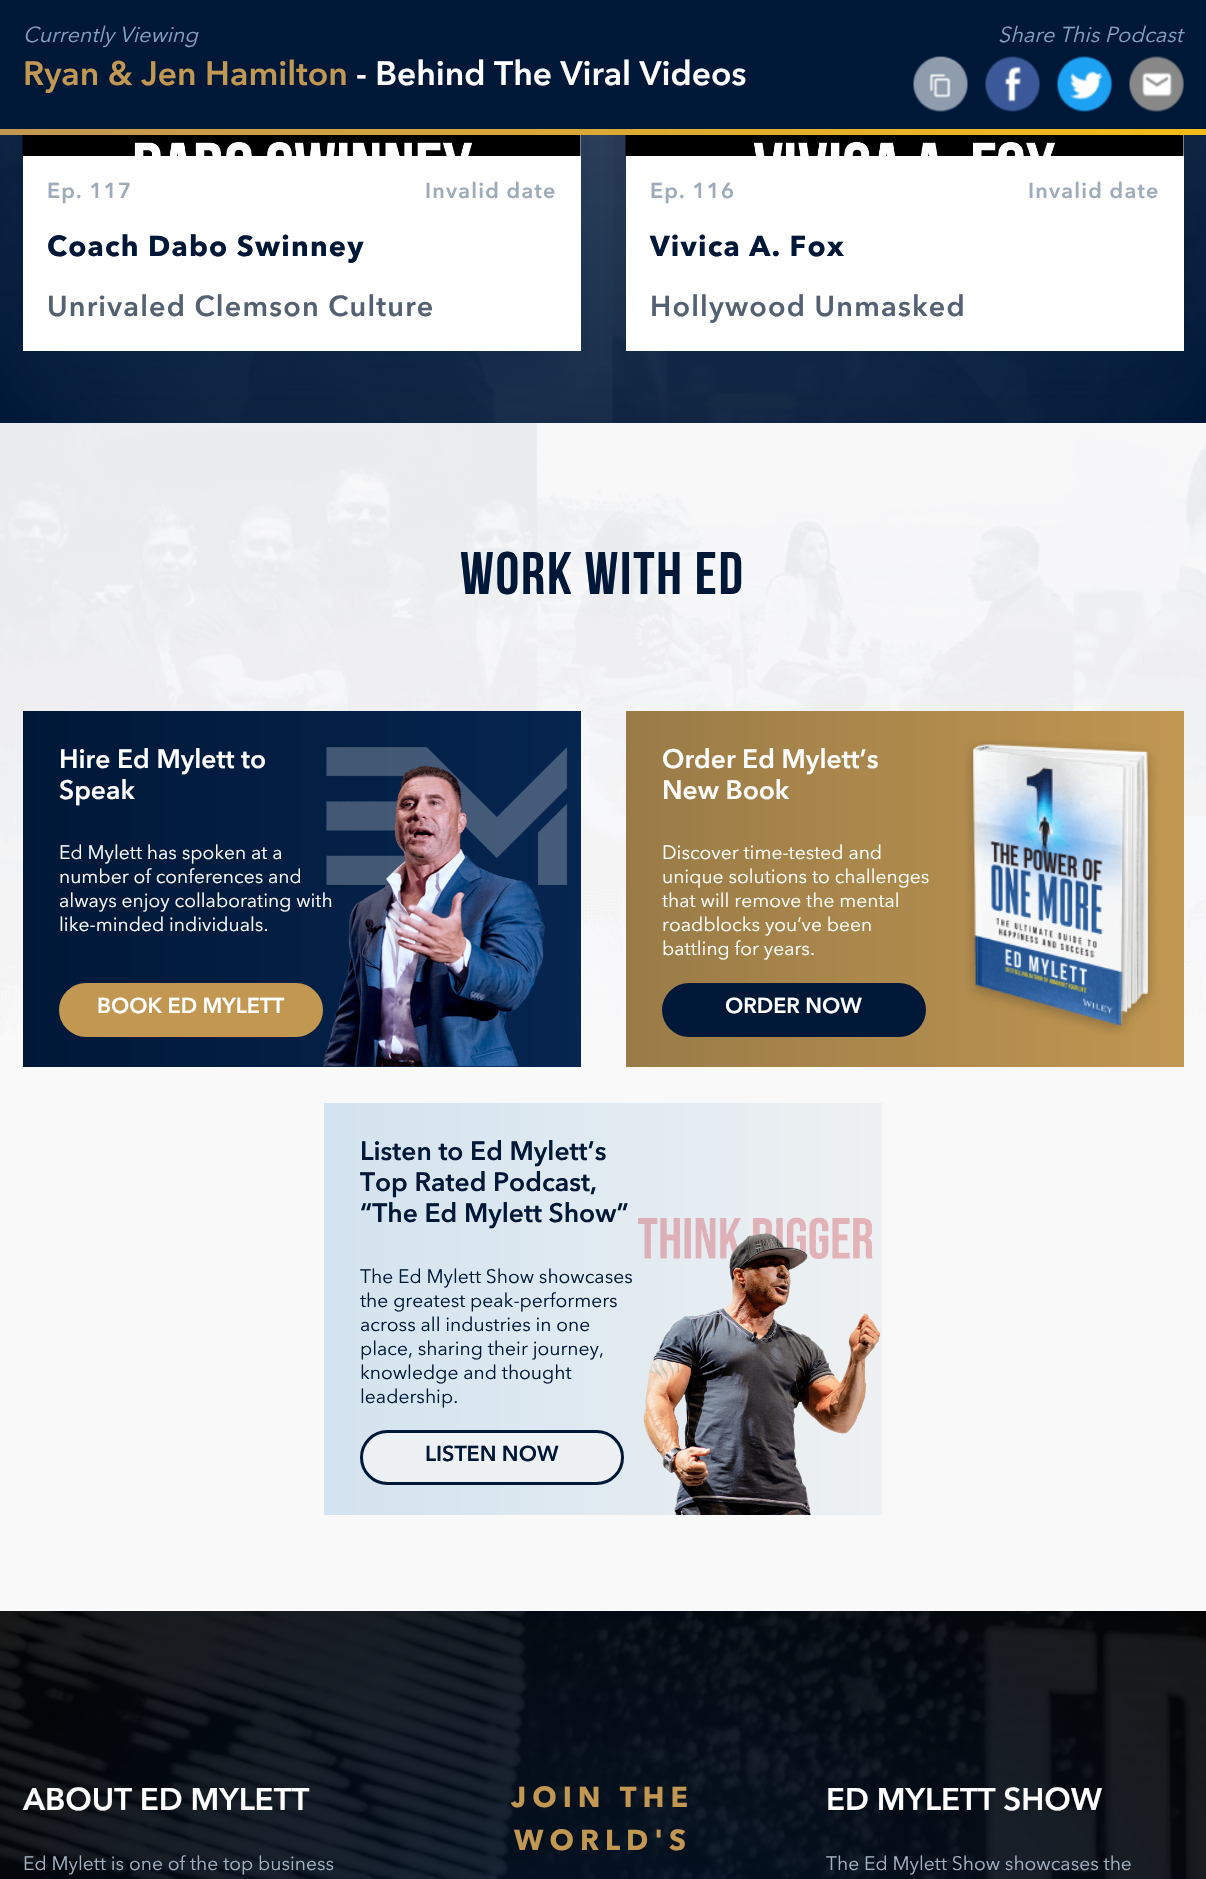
void draw(SkCanvas* canvas) {
    SkPaint paint;
    paint.setAntiAlias(true);
    auto spacedText = [&](const char* s, float x, float y, const SkFont& font, const SkPaint& ink, float letter, float word) {
        std::vector<SkGlyphID> glyphs(font.countText(s, strlen(s), SkTextEncoding::kUTF8));
        std::vector<float> xs(glyphs.size());
        font.textToGlyphs(s, strlen(s), SkTextEncoding::kUTF8, glyphs);
        font.getXPos(glyphs, xs, x);
        float extra = 0;
        for (size_t i = 0; i < glyphs.size(); i++) {
            xs[i] += extra;
            extra += letter + word * (glyphs[i] == font.unicharToGlyph(' '));
        }
        canvas->drawTextBlob(SkTextBlob::MakeFromPosHGlyphs(glyphs, xs, y, font), 0, 0, ink);
    };
    canvas->clear(0xFFFFFFFF);
    canvas->drawImageRect(SkImages::DeferredFromEncodedData(SkData::MakeFromFileName("img5.png")), SkRect::MakeXYWH(0, 135, 1206, 288), SkSamplingOptions());
    {
        const SkColor colors[] = {0xB3001838, 0xFF001838};
        const float stops[] = {0, 1};
        SkMatrix m = SkMatrix::Translate(603, -406).preScale(853, 1172);
        paint.setShader(SkGradientShader::MakeRadial({0, 0}, 1, colors, stops, 2, SkTileMode::kClamp, 0, &m));
        paint.setAlpha(255);
    }
    canvas->drawRect(SkRect::MakeXYWH(0, 135, 1206, 288), paint);
    paint.setShader(nullptr);
    paint.setColor(0x80082245);
    paint.setMaskFilter(SkMaskFilter::MakeBlur(kNormal_SkBlurStyle, 18));
    canvas->drawRect(SkRect::MakeXYWH(51, -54, 501, 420), paint);
    paint.setMaskFilter(nullptr);
    paint.setMaskFilter(SkMaskFilter::MakeBlur(kNormal_SkBlurStyle, 18));
    canvas->drawRect(SkRect::MakeXYWH(654, -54, 501, 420), paint);
    paint.setMaskFilter(nullptr);
    paint.setColor(0xFF001838);
    canvas->drawRect(SkRect::MakeXYWH(0, 0, 1206, 129), paint);
    SkFont font1(fontMgr->matchFamilyStyle("Avenir Next", SkFontStyle::Italic()), 21.5f);
    font1.setSubpixel(true);
    paint.setColor(0xFF83A1C2);
    canvas->drawString("Currently Viewing", 23, 42, font1, paint);
    SkFont font2(fontMgr->matchFamilyStyle("Avenir Next", SkFontStyle(600, SkFontStyle::kNormal_Width, SkFontStyle::kUpright_Slant)), 33.6f);
    font2.setSubpixel(true);
    paint.setColor(0xFFC19752);
    canvas->drawString("Ryan & Jen Hamilton", 23, 85, font2, paint);
    paint.setColor(0xFFFFFFFF);
    canvas->drawString("- Behind The Viral Videos", 356, 85, font2, paint);
    paint.setColor(0xFF83A1C2);
    canvas->drawString("Share This Podcast", 998, 42, font1, paint);
    canvas->drawImageRect(SkImages::DeferredFromEncodedData(SkData::MakeFromFileName("img1.png")), SkRect::MakeXYWH(913, 56, 55, 56), SkSamplingOptions());
    canvas->drawImageRect(SkImages::DeferredFromEncodedData(SkData::MakeFromFileName("img2.png")), SkRect::MakeXYWH(985, 56, 55, 56), SkSamplingOptions());
    canvas->drawImageRect(SkImages::DeferredFromEncodedData(SkData::MakeFromFileName("img3.png")), SkRect::MakeXYWH(1057, 56, 55, 56), SkSamplingOptions());
    canvas->drawImageRect(SkImages::DeferredFromEncodedData(SkData::MakeFromFileName("img4.png")), SkRect::MakeXYWH(1129, 56, 55, 56), SkSamplingOptions());
    {
        const SkColor colors[] = {0xFFC19752, 0xFFF4BC19};
        const float stops[] = {0, 1};
        const SkPoint ends[] = {{0, 132}, {1206, 132}};
        paint.setShader(SkGradientShader::MakeLinear(ends, colors, stops, 2, SkTileMode::kClamp));
        paint.setAlpha(255);
    }
    canvas->drawRect(SkRect::MakeXYWH(0, 129, 1206, 6), paint);
    paint.setShader(nullptr);
    paint.setColor(0xFFFFFFFF);
    canvas->drawRect(SkRect::MakeXYWH(23, 135, 558, 216), paint);
    canvas->drawImageRect(SkImages::DeferredFromEncodedData(SkData::MakeFromFileName("img6.png")), SkRect::MakeXYWH(22, 135, 559, 21), SkSamplingOptions());
    SkFont font3(fontMgr->matchFamilyStyle("Avenir Next", SkFontStyle(600, SkFontStyle::kNormal_Width, SkFontStyle::kUpright_Slant)), 21.5f);
    font3.setSubpixel(true);
    paint.setColor(0xFF9EABBB);
    spacedText("Ep. 117", 47, 198, font3, paint, 1.2f, 0);
    spacedText("Invalid date", 425, 198, font3, paint, 1.2f, 0);
    SkFont font4(fontMgr->matchFamilyStyle("Avenir Next", SkFontStyle::Bold()), 28.75f);
    font4.setSubpixel(true);
    paint.setColor(0xFF001838);
    spacedText("Coach Dabo Swinney", 47, 256, font4, paint, 1.2f, 0);
    SkFont font5(fontMgr->matchFamilyStyle("Avenir Next", SkFontStyle(600, SkFontStyle::kNormal_Width, SkFontStyle::kUpright_Slant)), 28.75f);
    font5.setSubpixel(true);
    paint.setColor(0xFF546172);
    spacedText("Unrivaled Clemson Culture", 47, 316, font5, paint, 1.2f, 0);
    paint.setColor(0xFFFFFFFF);
    canvas->drawRect(SkRect::MakeXYWH(626, 135, 558, 216), paint);
    canvas->drawImageRect(SkImages::DeferredFromEncodedData(SkData::MakeFromFileName("img7.png")), SkRect::MakeXYWH(625, 135, 559, 21), SkSamplingOptions());
    paint.setColor(0xFF9EABBB);
    spacedText("Ep. 116", 650, 198, font3, paint, 1.2f, 0);
    spacedText("Invalid date", 1028, 198, font3, paint, 1.2f, 0);
    paint.setColor(0xFF001838);
    spacedText("Vivica A. Fox", 650, 256, font4, paint, 1.2f, 0);
    paint.setColor(0xFF546172);
    spacedText("Hollywood Unmasked", 650, 316, font5, paint, 1.2f, 0);
    paint.setColor(0xFFF9F9FA);
    canvas->drawRect(SkRect::MakeXYWH(0, 423, 1206, 1188), paint);
    canvas->drawImageRect(SkImages::DeferredFromEncodedData(SkData::MakeFromFileName("img8.png")), SkRect::MakeXYWH(0, 423, 1206, 612), SkSamplingOptions());
    SkFont font6(fontMgr->matchFamilyStyle("Bebas Neue", SkFontStyle::Bold()), 60);
    font6.setSubpixel(true);
    paint.setColor(0xFF001838);
    spacedText("WORK WITH ED", 460, 594, font6, paint, 1.75f, 0);
    {
        const SkColor colors[] = {0xFF001838, 0xFF06254F};
        const float stops[] = {0, 1};
        const SkPoint ends[] = {{23, 889}, {581, 889}};
        paint.setShader(SkGradientShader::MakeLinear(ends, colors, stops, 2, SkTileMode::kClamp));
        paint.setAlpha(255);
    }
    canvas->drawRect(SkRect::MakeXYWH(23, 711, 558, 356), paint);
    SkFont font7(fontMgr->matchFamilyStyle("Avenir Next", SkFontStyle(600, SkFontStyle::kNormal_Width, SkFontStyle::kUpright_Slant)), 26.4f);
    font7.setSubpixel(true);
    paint.setShader(nullptr);
    paint.setColor(0xFFFFFFFF);
    canvas->drawString("Hire Ed Mylett to", 59, 768, font7, paint);
    canvas->drawString("Speak", 59, 799, font7, paint);
    SkFont font8(fontMgr->matchFamilyStyle("Avenir Next", SkFontStyle::Normal()), 19.25f);
    font8.setSubpixel(true);
    canvas->drawString("Ed Mylett has spoken at a", 59, 859, font8, paint);
    canvas->drawString("number of conferences and", 59, 883, font8, paint);
    canvas->drawString("always enjoy collaborating with", 59, 907, font8, paint);
    canvas->drawString("like-minded individuals.", 59, 931, font8, paint);
    paint.setColor(0xFFC19752);
    canvas->drawRoundRect(SkRect::MakeXYWH(60.5f, 984.5f, 261, 51), 25.5f, 25.5f, paint);
    paint.setStyle(SkPaint::kStroke_Style);
    paint.setStrokeWidth(3);
    canvas->drawRoundRect(SkRect::MakeXYWH(60.5f, 984.5f, 261, 51), 25.5f, 25.5f, paint);
    paint.setStyle(SkPaint::kFill_Style);
    paint.setColor(0xFFFFFFFF);
    canvas->drawString("BOOK ED MYLETT", 97, 1013, font3, paint);
    canvas->drawImageRect(SkImages::DeferredFromEncodedData(SkData::MakeFromFileName("img9.png")), SkRect::MakeXYWH(323, 747, 245, 320), SkSamplingOptions());
    {
        const SkColor colors[] = {0xFF9A7B47, 0xFFC19752};
        const float stops[] = {0, 1};
        const SkPoint ends[] = {{626, 889}, {1184, 889}};
        paint.setShader(SkGradientShader::MakeLinear(ends, colors, stops, 2, SkTileMode::kClamp));
        paint.setAlpha(255);
    }
    canvas->drawRect(SkRect::MakeXYWH(626, 711, 558, 356), paint);
    paint.setShader(nullptr);
    paint.setColor(0xFFFFFFFF);
    canvas->drawString("Order Ed Mylett’s", 662, 768, font7, paint);
    canvas->drawString("New Book", 662, 799, font7, paint);
    canvas->drawString("Discover time-tested and", 662, 859, font8, paint);
    canvas->drawString("unique solutions to challenges", 662, 883, font8, paint);
    canvas->drawString("that will remove the mental", 662, 907, font8, paint);
    canvas->drawString("roadblocks you’ve been", 662, 931, font8, paint);
    canvas->drawString("battling for years.", 662, 955, font8, paint);
    paint.setColor(0xFF001838);
    canvas->drawRoundRect(SkRect::MakeXYWH(662, 983, 264, 54), 27, 27, paint);
    paint.setColor(0xFFFFFFFF);
    canvas->drawString("ORDER NOW", 725, 1013, font3, paint);
    canvas->drawImageRect(SkImages::DeferredFromEncodedData(SkData::MakeFromFileName("img10.png")), SkRect::MakeXYWH(965, 740, 192, 296), SkSamplingOptions());
    {
        const SkColor colors[] = {0xFFD3E3EF, 0xFFEEF1F3};
        const float stops[] = {0, 1};
        const SkPoint ends[] = {{324, 1309}, {882, 1309}};
        paint.setShader(SkGradientShader::MakeLinear(ends, colors, stops, 2, SkTileMode::kClamp));
        paint.setAlpha(255);
    }
    canvas->drawRect(SkRect::MakeXYWH(324, 1103, 558, 412), paint);
    paint.setShader(nullptr);
    paint.setColor(0xFF001838);
    canvas->drawString("Listen to Ed Mylett’s", 360, 1160, font7, paint);
    canvas->drawString("Top Rated Podcast,", 360, 1191, font7, paint);
    canvas->drawString("“The Ed Mylett Show”", 360, 1222, font7, paint);
    canvas->drawString("The Ed Mylett Show showcases", 360, 1283, font8, paint);
    canvas->drawString("the greatest peak-performers", 360, 1307, font8, paint);
    canvas->drawString("across all industries in one", 360, 1331, font8, paint);
    canvas->drawString("place, sharing their journey,", 360, 1355, font8, paint);
    canvas->drawString("knowledge and thought", 360, 1379, font8, paint);
    canvas->drawString("leadership.", 360, 1403, font8, paint);
    paint.setColor(0xFFEEF1F3);
    canvas->drawRoundRect(SkRect::MakeXYWH(361.5f, 1431.5f, 261, 52), 26, 26, paint);
    paint.setStyle(SkPaint::kStroke_Style);
    paint.setColor(0xFF001838);
    canvas->drawRoundRect(SkRect::MakeXYWH(361.5f, 1431.5f, 261, 52), 26, 26, paint);
    paint.setStyle(SkPaint::kFill_Style);
    canvas->drawString("LISTEN NOW", 425, 1461, font3, paint);
    canvas->drawImageRect(SkImages::DeferredFromEncodedData(SkData::MakeFromFileName("img11.png")), SkRect::MakeXYWH(638, 1217, 243, 298), SkSamplingOptions());
    canvas->drawImageRect(SkImages::DeferredFromEncodedData(SkData::MakeFromFileName("img12.png")), SkRect::MakeXYWH(0, 1611, 1206, 268), SkSamplingOptions());
    SkFont font9(fontMgr->matchFamilyStyle("Avenir Next", SkFontStyle(600, SkFontStyle::kNormal_Width, SkFontStyle::kUpright_Slant)), 31.25f);
    font9.setSubpixel(true);
    paint.setColor(0xFFFFFFFF);
    canvas->drawString("ABOUT ED MYLETT", 23, 1810, font9, paint);
    paint.setColor(0xFFA3B2C2);
    canvas->drawString("Ed Mylett is one of the top business", 23, 1870, font8, paint);
    paint.setColor(0xFFC19752);
    spacedText("JOIN THE", 511, 1807, font4, paint, 6, 0);
    spacedText("WORLD'S", 514, 1850, font4, paint, 6, 0);
    paint.setColor(0xFFFFFFFF);
    canvas->drawString("ED MYLETT SHOW", 826, 1810, font9, paint);
    paint.setColor(0xFFA3B2C2);
    canvas->drawString("The Ed Mylett Show showcases the", 826, 1870, font8, paint);
}
